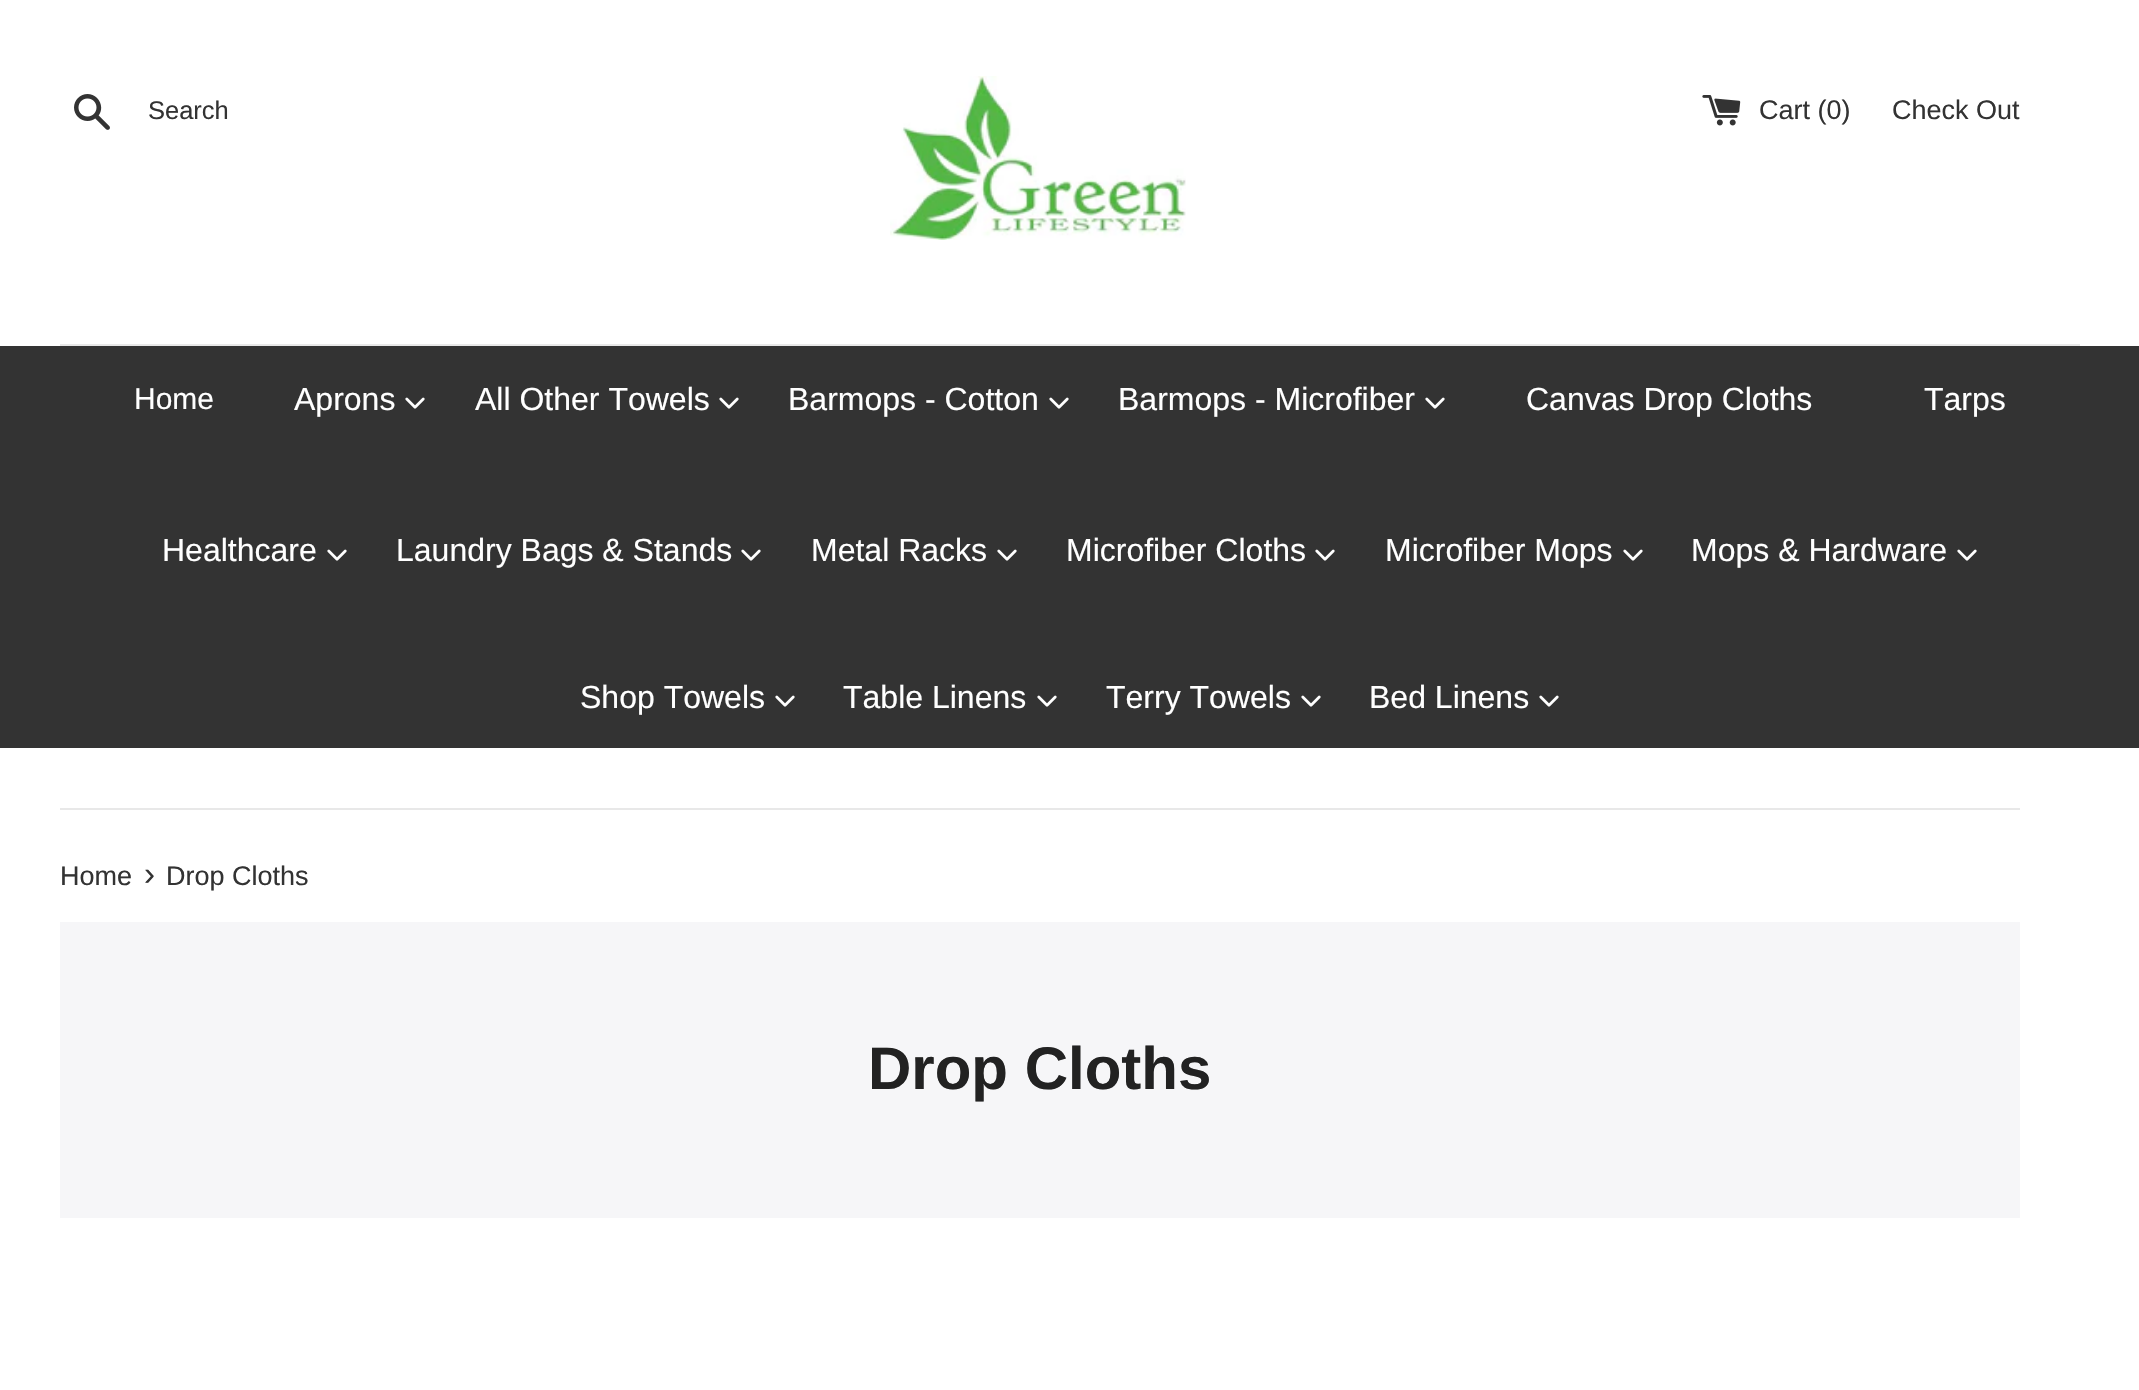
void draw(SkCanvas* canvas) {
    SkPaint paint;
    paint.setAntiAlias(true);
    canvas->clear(0xFFFFFFFF);
    canvas->drawImageRect(SkImages::DeferredFromEncodedData(SkData::MakeFromFileName("img1.png")), SkRect::MakeXYWH(74, 94, 36, 36), SkSamplingOptions());
    SkFont font1(fontMgr->matchFamilyStyle("Liberation Sans", SkFontStyle::Normal()), 25.5f);
    font1.setSubpixel(true);
    paint.setColor(0xFF333333);
    canvas->drawString("Search", 148, 119, font1, paint);
    canvas->drawImageRect(SkImages::DeferredFromEncodedData(SkData::MakeFromFileName("img2.png")), SkRect::MakeXYWH(890, 76, 296, 164), SkSamplingOptions());
    canvas->drawImageRect(SkImages::DeferredFromEncodedData(SkData::MakeFromFileName("img3.png")), SkRect::MakeXYWH(1702, 95, 39, 31), SkSamplingOptions());
    SkFont font2(fontMgr->matchFamilyStyle("Liberation Sans", SkFontStyle::Normal()), 27);
    font2.setSubpixel(true);
    canvas->drawString("Cart (0)", 1759, 119, font2, paint);
    canvas->drawString("Check Out", 1892, 119, font2, paint);
    paint.setColor(0xFFE8E8E8);
    canvas->drawRect(SkRect::MakeXYWH(60, 344, 2020, 2), paint);
    paint.setColor(0xFF333333);
    canvas->drawRect(SkRect::MakeXYWH(0, 346, 2139, 402), paint);
    SkFont font3(fontMgr->matchFamilyStyle("Liberation Sans", SkFontStyle::Normal()), 30);
    font3.setSubpixel(true);
    paint.setColor(0xFFFFFFFF);
    canvas->drawString("Home", 134, 409, font3, paint);
    SkFont font4(fontMgr->matchFamilyStyle("Liberation Sans", SkFontStyle::Normal()), 32);
    font4.setSubpixel(true);
    canvas->drawString("Aprons", 294, 410, font4, paint);
    canvas->drawImageRect(SkImages::DeferredFromEncodedData(SkData::MakeFromFileName("img4.png")), SkRect::MakeXYWH(405, 397, 20, 12), SkSamplingOptions());
    canvas->drawString("All Other Towels", 475, 410, font4, paint);
    canvas->drawImageRect(SkImages::DeferredFromEncodedData(SkData::MakeFromFileName("img4.png")), SkRect::MakeXYWH(719, 397, 20, 12), SkSamplingOptions());
    canvas->drawString("Barmops - Cotton", 788, 410, font4, paint);
    canvas->drawImageRect(SkImages::DeferredFromEncodedData(SkData::MakeFromFileName("img4.png")), SkRect::MakeXYWH(1049, 397, 20, 12), SkSamplingOptions());
    canvas->drawString("Barmops - Microfiber", 1118, 410, font4, paint);
    canvas->drawImageRect(SkImages::DeferredFromEncodedData(SkData::MakeFromFileName("img4.png")), SkRect::MakeXYWH(1425, 397, 20, 12), SkSamplingOptions());
    canvas->drawString("Canvas Drop Cloths", 1526, 410, font4, paint);
    canvas->drawString("Tarps", 1924, 410, font4, paint);
    canvas->drawString("Healthcare", 162, 561, font4, paint);
    canvas->drawImageRect(SkImages::DeferredFromEncodedData(SkData::MakeFromFileName("img4.png")), SkRect::MakeXYWH(327, 549, 20, 12), SkSamplingOptions());
    canvas->drawString("Laundry Bags & Stands", 396, 561, font4, paint);
    canvas->drawImageRect(SkImages::DeferredFromEncodedData(SkData::MakeFromFileName("img4.png")), SkRect::MakeXYWH(741, 549, 20, 12), SkSamplingOptions());
    canvas->drawString("Metal Racks", 811, 561, font4, paint);
    canvas->drawImageRect(SkImages::DeferredFromEncodedData(SkData::MakeFromFileName("img4.png")), SkRect::MakeXYWH(997, 549, 20, 12), SkSamplingOptions());
    canvas->drawString("Microfiber Cloths", 1066, 561, font4, paint);
    canvas->drawImageRect(SkImages::DeferredFromEncodedData(SkData::MakeFromFileName("img4.png")), SkRect::MakeXYWH(1315, 549, 20, 12), SkSamplingOptions());
    canvas->drawString("Microfiber Mops", 1385, 561, font4, paint);
    canvas->drawImageRect(SkImages::DeferredFromEncodedData(SkData::MakeFromFileName("img4.png")), SkRect::MakeXYWH(1623, 549, 20, 12), SkSamplingOptions());
    canvas->drawString("Mops & Hardware", 1691, 561, font4, paint);
    canvas->drawImageRect(SkImages::DeferredFromEncodedData(SkData::MakeFromFileName("img4.png")), SkRect::MakeXYWH(1957, 549, 20, 12), SkSamplingOptions());
    canvas->drawString("Shop Towels", 580, 708, font4, paint);
    canvas->drawImageRect(SkImages::DeferredFromEncodedData(SkData::MakeFromFileName("img4.png")), SkRect::MakeXYWH(775, 695, 20, 12), SkSamplingOptions());
    canvas->drawString("Table Linens", 843, 708, font4, paint);
    canvas->drawImageRect(SkImages::DeferredFromEncodedData(SkData::MakeFromFileName("img4.png")), SkRect::MakeXYWH(1037, 695, 20, 12), SkSamplingOptions());
    canvas->drawString("Terry Towels", 1106, 708, font4, paint);
    canvas->drawImageRect(SkImages::DeferredFromEncodedData(SkData::MakeFromFileName("img4.png")), SkRect::MakeXYWH(1301, 695, 20, 12), SkSamplingOptions());
    canvas->drawString("Bed Linens", 1369, 708, font4, paint);
    canvas->drawImageRect(SkImages::DeferredFromEncodedData(SkData::MakeFromFileName("img4.png")), SkRect::MakeXYWH(1539, 695, 20, 12), SkSamplingOptions());
    paint.setColor(0xFFE8E8E8);
    canvas->drawRect(SkRect::MakeXYWH(60, 808, 1960, 2), paint);
    paint.setColor(0xFF333333);
    canvas->drawString("Home", 60, 885, font2, paint);
    SkFont font5(fontMgr->matchFamilyStyle("Liberation Sans", SkFontStyle::Normal()), 33);
    font5.setSubpixel(true);
    canvas->drawString("›", 144, 885, font5, paint);
    canvas->drawString("Drop Cloths", 166, 885, font2, paint);
    paint.setColor(0xFFF6F6F8);
    canvas->drawRect(SkRect::MakeXYWH(60, 922, 1960, 296), paint);
    SkFont font6(fontMgr->matchFamilyStyle("Liberation Sans", SkFontStyle::Bold()), 60);
    font6.setSubpixel(true);
    paint.setColor(0xFF222222);
    canvas->drawString("Drop Cloths", 868, 1089, font6, paint);
}
